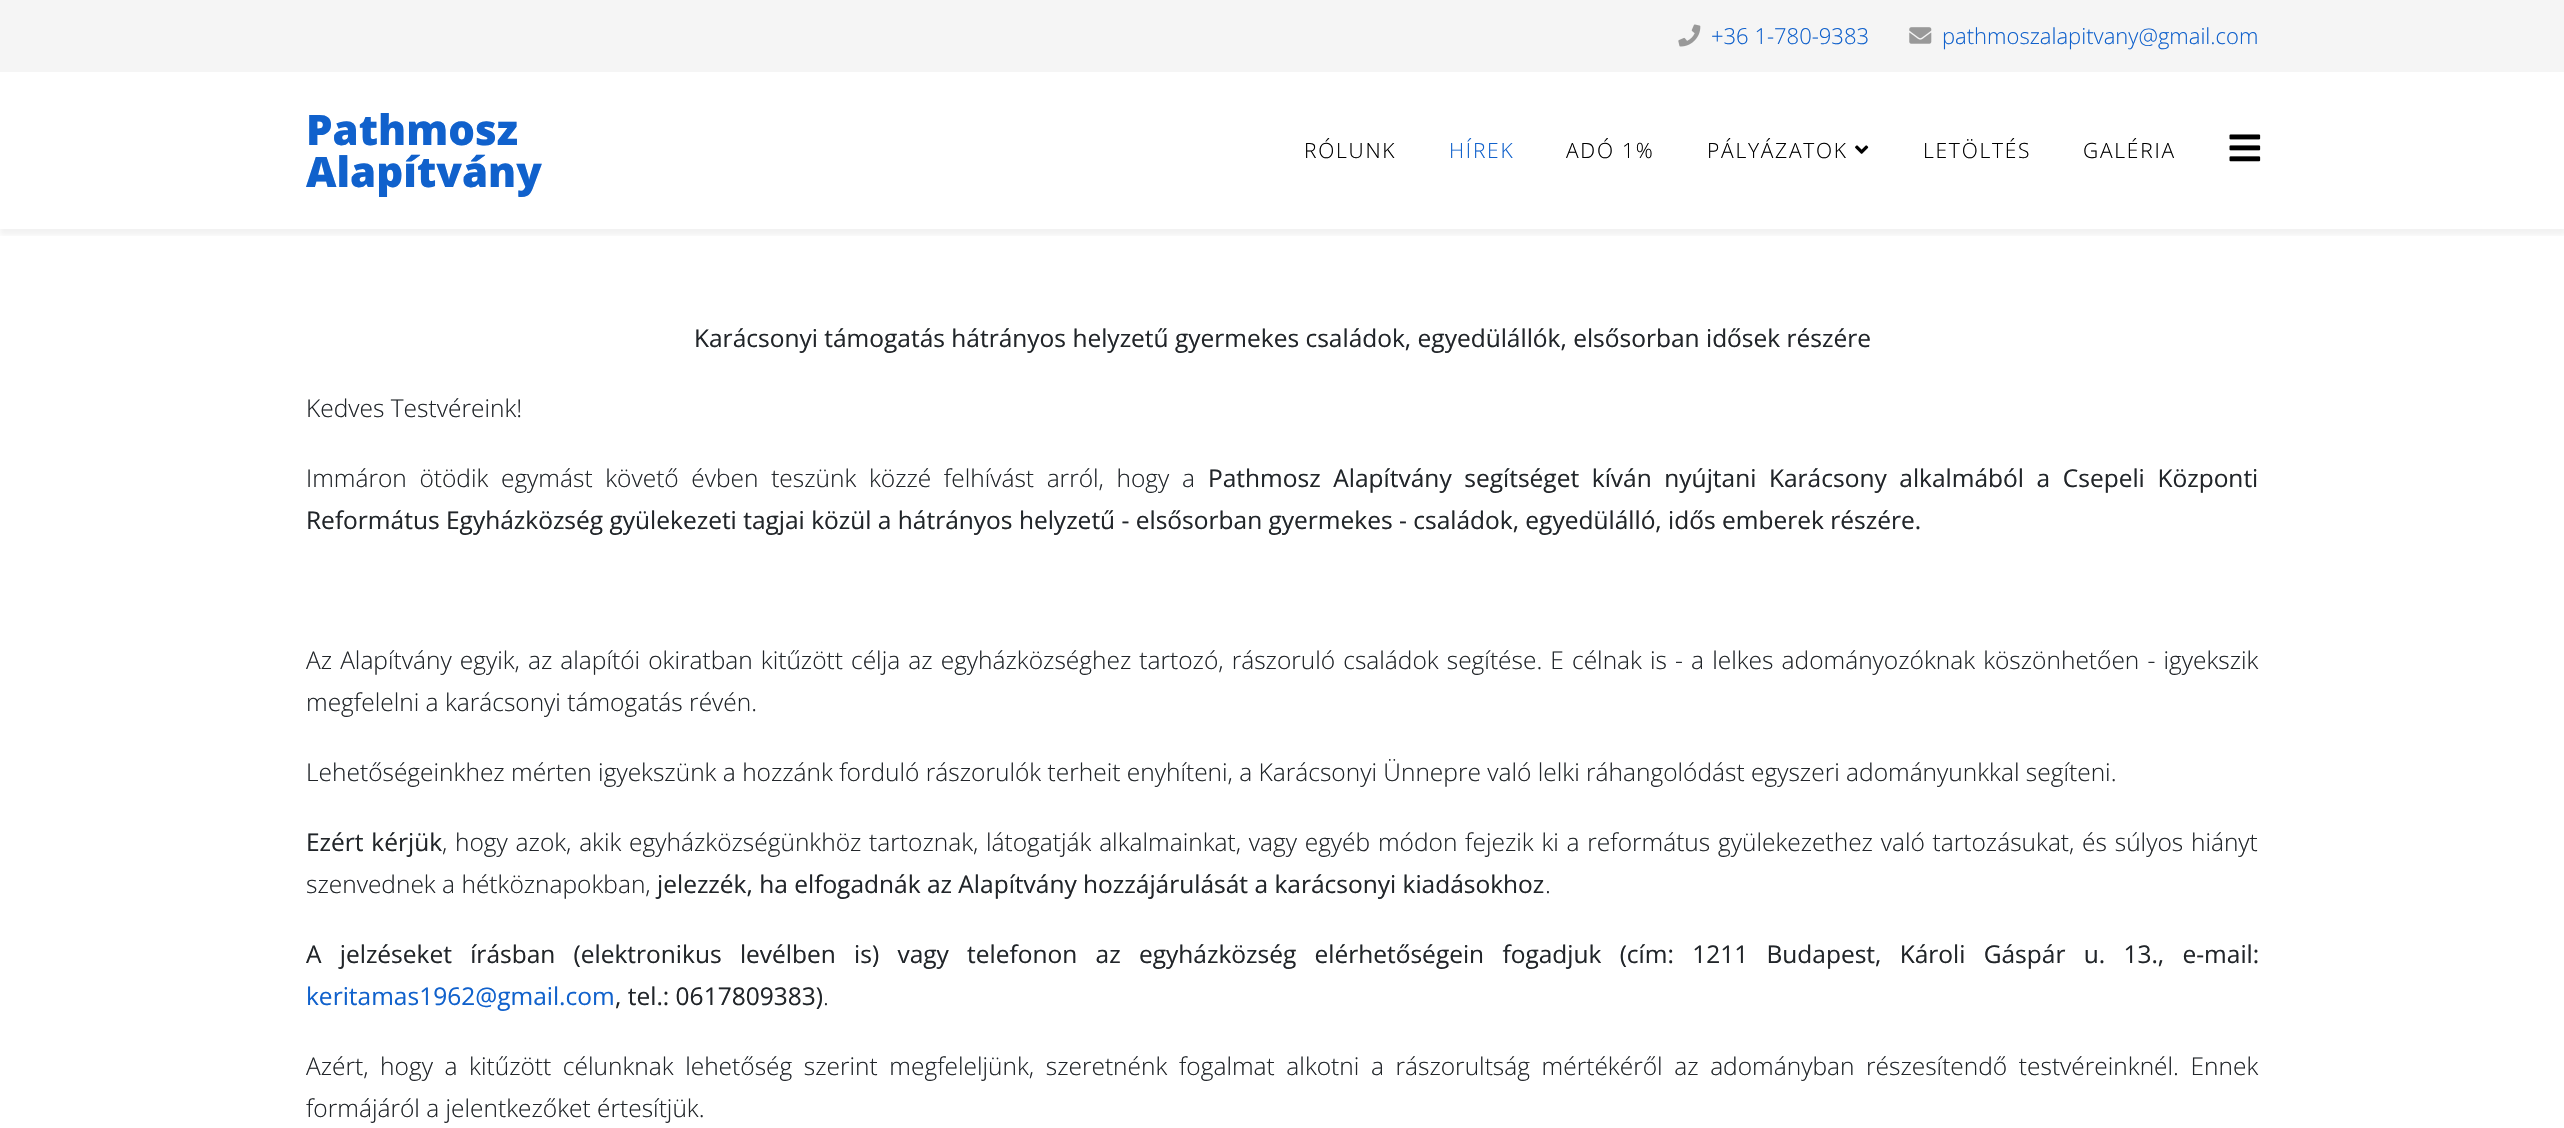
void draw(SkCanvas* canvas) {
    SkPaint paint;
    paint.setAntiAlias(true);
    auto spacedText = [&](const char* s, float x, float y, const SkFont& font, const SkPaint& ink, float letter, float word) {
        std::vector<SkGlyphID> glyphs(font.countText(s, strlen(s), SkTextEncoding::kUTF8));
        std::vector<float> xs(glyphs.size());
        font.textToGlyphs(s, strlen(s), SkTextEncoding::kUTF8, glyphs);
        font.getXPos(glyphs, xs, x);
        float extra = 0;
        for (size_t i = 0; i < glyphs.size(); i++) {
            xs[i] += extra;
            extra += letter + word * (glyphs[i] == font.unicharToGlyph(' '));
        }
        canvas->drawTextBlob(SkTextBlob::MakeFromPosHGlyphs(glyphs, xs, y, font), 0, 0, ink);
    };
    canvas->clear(0xFFFFFFFF);
    paint.setColor(0xFFF5F5F5);
    canvas->drawRect(SkRect::MakeXYWH(0, 0, 2564, 72), paint);
    canvas->drawImageRect(SkImages::DeferredFromEncodedData(SkData::MakeFromFileName("img1.png")), SkRect::MakeXYWH(1678, 24, 23, 23), SkSamplingOptions());
    SkFont font1(fontMgr->matchFamilyStyle("Open Sans", SkFontStyle(300, SkFontStyle::kNormal_Width, SkFontStyle::kUpright_Slant)), 22);
    font1.setSubpixel(true);
    paint.setColor(0xFF1061CC);
    canvas->drawString("+36 1-780-9383", 1711, 44, font1, paint);
    canvas->drawImageRect(SkImages::DeferredFromEncodedData(SkData::MakeFromFileName("img2.png")), SkRect::MakeXYWH(1909, 27, 23, 17), SkSamplingOptions());
    canvas->drawString("pathmoszalapitvany@gmail.com", 1942, 44, font1, paint);
    canvas->save();
    canvas->clipRect(SkRect::MakeXYWH(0, 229, 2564, 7));
    paint.setColor(0x0D000000);
    paint.setMaskFilter(SkMaskFilter::MakeBlur(kNormal_SkBlurStyle, 2.5f));
    canvas->drawRect(SkRect::MakeXYWH(0, 77, 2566, 158), paint);
    paint.setMaskFilter(nullptr);
    canvas->restore();
    SkFont font2(fontMgr->matchFamilyStyle("Open Sans", SkFontStyle(800, SkFontStyle::kNormal_Width, SkFontStyle::kUpright_Slant)), 42);
    font2.setSubpixel(true);
    paint.setColor(0xFF1061CC);
    canvas->drawString("Pathmosz", 306, 145, font2, paint);
    canvas->drawString("Alapítvány", 306, 187, font2, paint);
    SkFont font3(fontMgr->matchFamilyStyle("Open Sans", SkFontStyle(300, SkFontStyle::kNormal_Width, SkFontStyle::kUpright_Slant)), 21);
    font3.setSubpixel(true);
    paint.setColor(0xFF000000);
    spacedText("RÓLUNK", 1304, 158, font3, paint, 1.75f, 0);
    paint.setColor(0xFF1061CC);
    spacedText("HÍREK", 1449, 158, font3, paint, 1.75f, 0);
    paint.setColor(0xFF000000);
    spacedText("ADÓ 1%", 1566, 158, font3, paint, 1.75f, 0);
    spacedText("PÁLYÁZATOK", 1707, 158, font3, paint, 1.75f, 0);
    canvas->drawImageRect(SkImages::DeferredFromEncodedData(SkData::MakeFromFileName("img3.png")), SkRect::MakeXYWH(1855, 145, 14, 9), SkSamplingOptions());
    spacedText("LETÖLTÉS", 1923, 158, font3, paint, 1.75f, 0);
    spacedText("GALÉRIA", 2083, 158, font3, paint, 1.75f, 0);
    canvas->drawImageRect(SkImages::DeferredFromEncodedData(SkData::MakeFromFileName("img4.png")), SkRect::MakeXYWH(2229, 134, 32, 28), SkSamplingOptions());
    SkFont font4(fontMgr->matchFamilyStyle("Open Sans", SkFontStyle::Normal()), 24.5f);
    font4.setSubpixel(true);
    paint.setColor(0xFF212529);
    canvas->drawString("Karácsonyi támogatás hátrányos helyzetű gyermekes családok, egyedülállók, elsősorban idősek részére", 694, 347, font4, paint);
    SkFont font5(fontMgr->matchFamilyStyle("Open Sans", SkFontStyle(300, SkFontStyle::kNormal_Width, SkFontStyle::kUpright_Slant)), 24.5f);
    font5.setSubpixel(true);
    canvas->drawString("Kedves Testvéreink!", 306, 417, font5, paint);
    spacedText("Immáron ötödik egymást követő évben teszünk közzé felhívást arról, hogy a", 306, 487, font5, paint, 0, 6.25f);
    spacedText("Pathmosz Alapítvány segítséget kíván nyújtani Karácsony alkalmából a Csepeli Központi", 1208, 487, font4, paint, 0, 6.25f);
    canvas->drawString("Református Egyházközség gyülekezeti tagjai közül a hátrányos helyzetű - elsősorban gyermekes - családok, egyedülálló, idős emberek részére.", 306, 529, font4, paint);
    spacedText("Az Alapítvány egyik, az alapítói okiratban kitűzött célja az egyházközséghez tartozó, rászoruló családok segítése. E célnak is - a lelkes adományozóknak köszönhetően - igyekszik", 306, 669, font5, paint, 0, 1.75f);
    canvas->drawString("megfelelni a karácsonyi támogatás révén.", 306, 711, font5, paint);
    canvas->drawString("Lehetőségeinkhez mérten igyekszünk a hozzánk forduló rászorulók terheit enyhíteni, a Karácsonyi Ünnepre való lelki ráhangolódást egyszeri adományunkkal segíteni.", 306, 781, font5, paint);
    spacedText("Ezért kérjük", 306, 851, font4, paint, 0, 1.4f);
    spacedText(", hogy azok, akik egyházközségünkhöz tartoznak, látogatják alkalmainkat, vagy egyéb módon fejezik ki a református gyülekezethez való tartozásukat, és súlyos hiányt", 442, 851, font5, paint, 0, 1.4f);
    canvas->drawString("szenvednek a hétköznapokban,", 306, 893, font5, paint);
    canvas->drawString("jelezzék, ha elfogadnák az Alapítvány hozzájárulását a karácsonyi kiadásokhoz", 657, 893, font4, paint);
    canvas->drawString(".", 1545, 893, font5, paint);
    spacedText("A jelzéseket írásban (elektronikus levélben is) vagy telefonon az egyházközség elérhetőségein fogadjuk (cím: 1211 Budapest, Károli Gáspár u. 13., e-mail:", 306, 963, font4, paint, 0, 11.9f);
    paint.setColor(0xFF1061CC);
    canvas->drawString("keritamas1962@gmail.com", 306, 1005, font4, paint);
    paint.setColor(0xFF212529);
    canvas->drawString(", tel.: 0617809383)", 615, 1005, font4, paint);
    canvas->drawString(".", 823, 1005, font5, paint);
    spacedText("Azért, hogy a kitűzött célunknak lehetőség szerint megfeleljünk, szeretnénk fogalmat alkotni a rászorultság mértékéről az adományban részesítendő testvéreinknél. Ennek", 306, 1075, font5, paint, 0, 5.25f);
    canvas->drawString("formájáról a jelentkezőket értesítjük.", 306, 1117, font5, paint);
}
